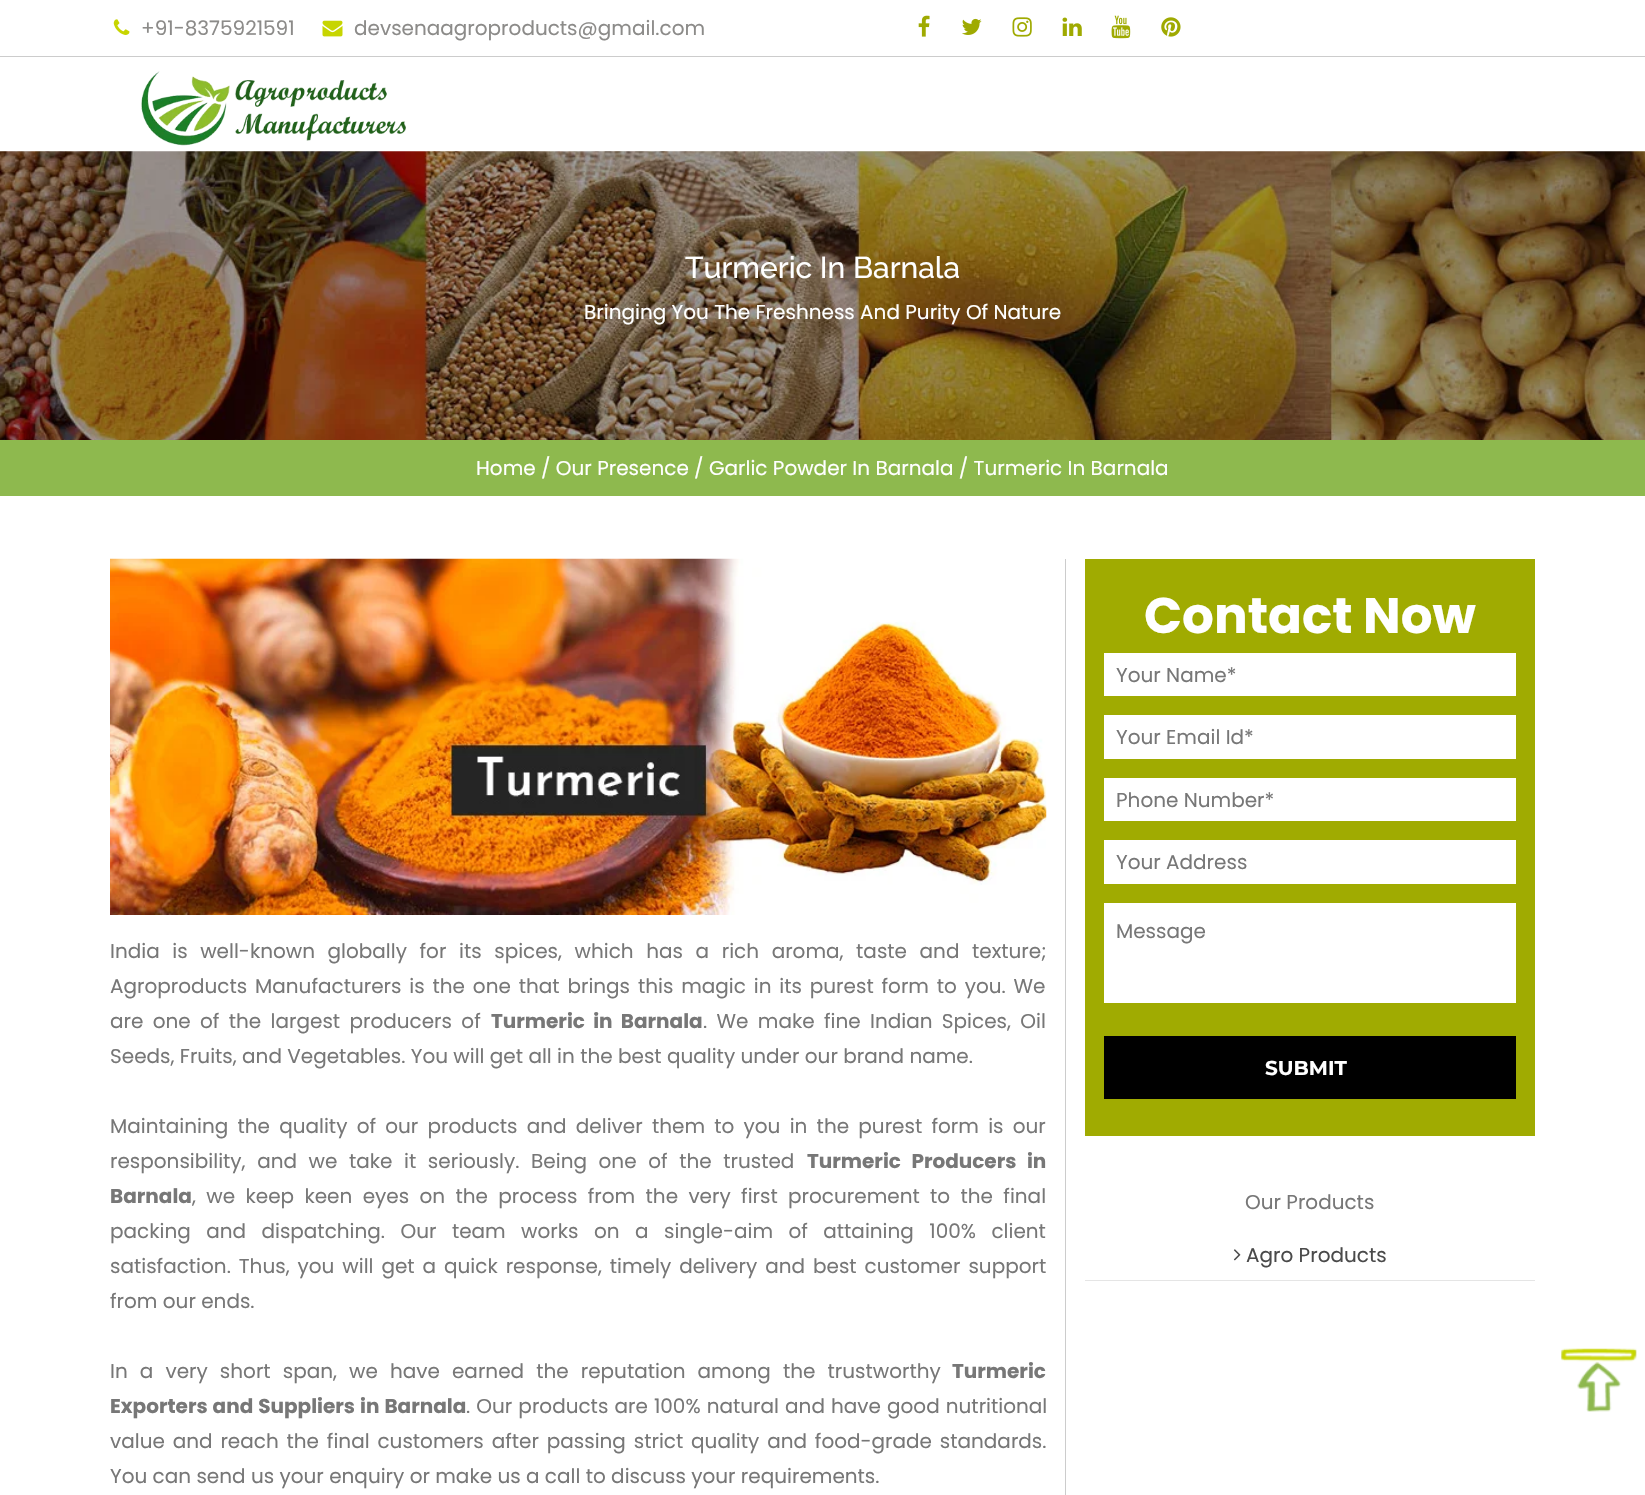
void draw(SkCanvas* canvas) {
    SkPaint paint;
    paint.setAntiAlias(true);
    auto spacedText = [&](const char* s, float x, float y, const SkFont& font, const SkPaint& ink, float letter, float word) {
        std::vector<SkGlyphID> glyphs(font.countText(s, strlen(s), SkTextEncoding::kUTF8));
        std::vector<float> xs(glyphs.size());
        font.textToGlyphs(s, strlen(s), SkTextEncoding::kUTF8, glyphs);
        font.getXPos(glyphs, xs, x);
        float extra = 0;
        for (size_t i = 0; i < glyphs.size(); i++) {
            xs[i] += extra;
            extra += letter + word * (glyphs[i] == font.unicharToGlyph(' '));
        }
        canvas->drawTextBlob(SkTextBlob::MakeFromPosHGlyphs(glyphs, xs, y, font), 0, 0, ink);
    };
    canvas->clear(0xFFFFFFFF);
    paint.setColor(0xFFCCCCCC);
    canvas->drawRect(SkRect::MakeXYWH(0, 56, 1645, 1), paint);
    canvas->drawImageRect(SkImages::DeferredFromEncodedData(SkData::MakeFromFileName("img1.png")), SkRect::MakeXYWH(113, 19, 17, 16), SkSamplingOptions());
    SkFont font1(fontMgr->matchFamilyStyle("Poppins", SkFontStyle::Normal()), 20);
    font1.setSubpixel(true);
    paint.setColor(0xFF8C8B89);
    canvas->drawString("+91-8375921591", 141, 35, font1, paint);
    canvas->drawImageRect(SkImages::DeferredFromEncodedData(SkData::MakeFromFileName("img2.png")), SkRect::MakeXYWH(322, 20, 21, 17), SkSamplingOptions());
    canvas->drawString("devsenaagroproducts@gmail.com", 354, 35, font1, paint);
    canvas->drawImageRect(SkImages::DeferredFromEncodedData(SkData::MakeFromFileName("img3.png")), SkRect::MakeXYWH(918, 15, 12, 22), SkSamplingOptions());
    canvas->drawImageRect(SkImages::DeferredFromEncodedData(SkData::MakeFromFileName("img4.png")), SkRect::MakeXYWH(962, 18, 20, 17), SkSamplingOptions());
    canvas->drawImageRect(SkImages::DeferredFromEncodedData(SkData::MakeFromFileName("img5.png")), SkRect::MakeXYWH(1012, 17, 20, 20), SkSamplingOptions());
    canvas->drawImageRect(SkImages::DeferredFromEncodedData(SkData::MakeFromFileName("img6.png")), SkRect::MakeXYWH(1062, 17, 20, 19), SkSamplingOptions());
    canvas->drawImageRect(SkImages::DeferredFromEncodedData(SkData::MakeFromFileName("img7.png")), SkRect::MakeXYWH(1111, 15, 20, 24), SkSamplingOptions());
    canvas->drawImageRect(SkImages::DeferredFromEncodedData(SkData::MakeFromFileName("img8.png")), SkRect::MakeXYWH(1161, 17, 20, 20), SkSamplingOptions());
    canvas->drawImageRect(SkImages::DeferredFromEncodedData(SkData::MakeFromFileName("img9.png")), SkRect::MakeXYWH(141, 71, 265, 75), SkSamplingOptions());
    canvas->drawImageRect(SkImages::DeferredFromEncodedData(SkData::MakeFromFileName("img10.png")), SkRect::MakeXYWH(0, 151, 1645, 289), SkSamplingOptions());
    SkFont font2(fontMgr->matchFamilyStyle("Raleway", SkFontStyle(500, SkFontStyle::kNormal_Width, SkFontStyle::kUpright_Slant)), 30);
    font2.setSubpixel(true);
    paint.setColor(0xFFFFFFFF);
    canvas->drawString("Turmeric In Barnala", 685, 278, font2, paint);
    canvas->drawString("Bringing You The Freshness And Purity Of Nature", 584, 319, font1, paint);
    paint.setColor(0xFF8EB94E);
    canvas->drawRect(SkRect::MakeXYWH(0, 440, 1645, 56), paint);
    paint.setColor(0xFFFFFFFF);
    canvas->drawString("Home / Our Presence / Garlic Powder In Barnala / Turmeric In Barnala", 476, 475, font1, paint);
    paint.setColor(0xFFCCCCCC);
    canvas->drawRect(SkRect::MakeXYWH(1065, 559, 1, 936), paint);
    canvas->drawImageRect(SkImages::DeferredFromEncodedData(SkData::MakeFromFileName("img11.png")), SkRect::MakeXYWH(110, 558, 937, 357), SkSamplingOptions());
    paint.setColor(0xFF777777);
    spacedText("India is well-known globally for its spices, which has a rich aroma, taste and texture;", 110, 958, font1, paint, 0, 7.25f);
    spacedText("Agroproducts Manufacturers is the one that brings this magic in its purest form to you. We", 110, 993, font1, paint, 0, 2.5f);
    spacedText("are one of the largest producers of", 110, 1028, font1, paint, 0, 4);
    SkFont font3(fontMgr->matchFamilyStyle("Poppins", SkFontStyle::Bold()), 20);
    font3.setSubpixel(true);
    spacedText("Turmeric in Barnala", 491, 1028, font3, paint, 0, 4);
    spacedText(". We make fine Indian Spices, Oil", 703, 1028, font1, paint, 0, 4);
    canvas->drawString("Seeds, Fruits, and Vegetables. You will get all in the best quality under our brand name.", 110, 1063, font1, paint);
    spacedText("Maintaining the quality of our products and deliver them to you in the purest form is our", 110, 1133, font1, paint, 0, 3.9f);
    spacedText("responsibility, and we take it seriously. Being one of the trusted", 110, 1168, font1, paint, 0, 6.25f);
    spacedText("Turmeric Producers in", 807, 1168, font3, paint, 0, 6.25f);
    canvas->drawString("Barnala", 110, 1203, font3, paint);
    spacedText(", we keep keen eyes on the process from the very first procurement to the final", 192, 1203, font1, paint, 0, 5);
    spacedText("packing and dispatching. Our team works on a single-aim of attaining 100% client", 110, 1238, font1, paint, 0, 10.1f);
    spacedText("satisfaction. Thus, you will get a quick response, timely delivery and best customer support", 110, 1273, font1, paint, 0, 2.6f);
    canvas->drawString("from our ends.", 110, 1308, font1, paint);
    spacedText("In a very short span, we have earned the reputation among the trustworthy", 110, 1378, font1, paint, 0, 6.75f);
    canvas->drawString("Turmeric", 952, 1378, font3, paint);
    spacedText("Exporters and Suppliers in Barnala", 110, 1413, font3, paint, 0, 0.75f);
    spacedText(". Our products are 100% natural and have good nutritional", 466, 1413, font1, paint, 0, 0.75f);
    spacedText("value and reach the final customers after passing strict quality and food-grade standards.", 110, 1448, font1, paint, 0, 2.5f);
    canvas->drawString("You can send us your enquiry or make us a call to discuss your requirements.", 110, 1483, font1, paint);
    paint.setColor(0xFFA0AB01);
    canvas->drawRect(SkRect::MakeXYWH(1085, 559, 450, 577), paint);
    SkFont font4(fontMgr->matchFamilyStyle("Poppins", SkFontStyle::Bold()), 50);
    font4.setSubpixel(true);
    paint.setColor(0xFFFFFFFF);
    canvas->drawString("Contact Now", 1144, 633, font4, paint);
    canvas->drawRect(SkRect::MakeXYWH(1104, 653, 412, 43), paint);
    paint.setColor(0xFF777777);
    canvas->drawString("Your Name*", 1116, 682, font1, paint);
    paint.setColor(0xFFFFFFFF);
    canvas->drawRect(SkRect::MakeXYWH(1104, 715, 412, 44), paint);
    paint.setColor(0xFF777777);
    canvas->drawString("Your Email Id*", 1116, 744, font1, paint);
    paint.setColor(0xFFFFFFFF);
    canvas->drawRect(SkRect::MakeXYWH(1104, 778, 412, 43), paint);
    paint.setColor(0xFF777777);
    canvas->drawString("Phone Number*", 1116, 807, font1, paint);
    paint.setColor(0xFFFFFFFF);
    canvas->drawRect(SkRect::MakeXYWH(1104, 840, 412, 44), paint);
    paint.setColor(0xFF777777);
    canvas->drawString("Your Address", 1116, 869, font1, paint);
    paint.setColor(0xFFFFFFFF);
    canvas->drawRect(SkRect::MakeXYWH(1104, 903, 412, 100), paint);
    paint.setColor(0xFF777777);
    canvas->drawString("Message", 1116, 938, font1, paint);
    paint.setColor(0xFF000000);
    canvas->drawRect(SkRect::MakeXYWH(1104, 1036, 412, 63), paint);
    SkFont font5(fontMgr->matchFamilyStyle("Montserrat", SkFontStyle::Bold()), 20);
    font5.setSubpixel(true);
    paint.setColor(0xFFFFFFFF);
    canvas->drawString("SUBMIT", 1265, 1075, font5, paint);
    paint.setColor(0xFF777777);
    canvas->drawString("Our Products", 1245, 1209, font1, paint);
    paint.setColor(0xFFE5E5E5);
    canvas->drawRect(SkRect::MakeXYWH(1085, 1280, 450, 1), paint);
    canvas->drawImageRect(SkImages::DeferredFromEncodedData(SkData::MakeFromFileName("img12.png")), SkRect::MakeXYWH(1233, 1249, 8, 12), SkSamplingOptions());
    paint.setColor(0xFF4A4A4A);
    canvas->drawString("Agro Products", 1246, 1262, font1, paint);
    canvas->drawImageRect(SkImages::DeferredFromEncodedData(SkData::MakeFromFileName("img13.png")), SkRect::MakeXYWH(1561, 1348, 76, 64), SkSamplingOptions());
}
